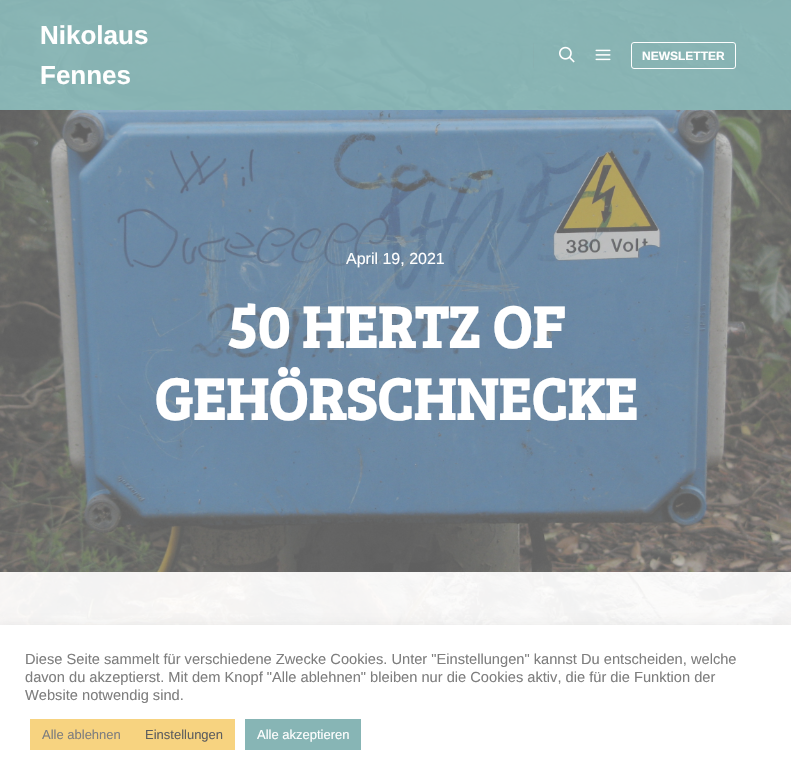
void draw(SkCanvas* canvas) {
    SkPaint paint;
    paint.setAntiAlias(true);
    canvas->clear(0xFFFFFFFF);
    canvas->drawImageRect(SkImages::DeferredFromEncodedData(SkData::MakeFromFileName("img1.png")), SkRect::MakeXYWH(0, 0, 791, 625), SkSamplingOptions());
    paint.setColor(0xF287B5B5);
    canvas->drawRect(SkRect::MakeXYWH(0, 0, 791, 110), paint);
    SkFont font1(fontMgr->matchFamilyStyle("Liberation Sans", SkFontStyle::Bold()), 26);
    font1.setSubpixel(true);
    paint.setColor(0xFFFFFFFF);
    canvas->drawString("Nikolaus", 40, 44, font1, paint);
    canvas->drawString("Fennes", 40, 84, font1, paint);
    paint.setColor(0x0F838383);
    canvas->drawRect(SkRect::MakeXYWH(533, 43, 1, 25), paint);
    canvas->drawImageRect(SkImages::DeferredFromEncodedData(SkData::MakeFromFileName("img2.png")), SkRect::MakeXYWH(559, 46, 16, 17), SkSamplingOptions());
    canvas->drawImageRect(SkImages::DeferredFromEncodedData(SkData::MakeFromFileName("img3.png")), SkRect::MakeXYWH(595, 49, 16, 12), SkSamplingOptions());
    paint.setStyle(SkPaint::kStroke_Style);
    paint.setStrokeWidth(1);
    paint.setColor(0xFFFFFFFF);
    canvas->drawRoundRect(SkRect::MakeXYWH(631.5f, 42.5f, 104, 26), 2.5f, 2.5f, paint);
    SkFont font2(fontMgr->matchFamilyStyle("Liberation Sans", SkFontStyle::Bold()), 12);
    font2.setSubpixel(true);
    paint.setStyle(SkPaint::kFill_Style);
    canvas->drawString("NEWSLETTER", 642, 60, font2, paint);
    canvas->drawImageRect(SkImages::DeferredFromEncodedData(SkData::MakeFromFileName("img4.png")), SkRect::MakeXYWH(0, 110, 791, 462), SkSamplingOptions());
    SkFont font3(fontMgr->matchFamilyStyle("Liberation Sans", SkFontStyle::Normal()), 16);
    font3.setSubpixel(true);
    canvas->drawString("April 19, 2021", 346, 264, font3, paint);
    SkFont font4(fontMgr->matchFamilyStyle("Bree Serif", SkFontStyle::Bold()), 60);
    font4.setSubpixel(true);
    canvas->drawString("50 HERTZ OF", 227, 348, font4, paint);
    canvas->drawString("GEHÖRSCHNECKE", 154, 420, font4, paint);
    paint.setColor(0xE6FFFFFF);
    canvas->drawRect(SkRect::MakeXYWH(0, 572, 791, 53), paint);
    paint.setColor(0x4DCBCACA);
    paint.setMaskFilter(SkMaskFilter::MakeBlur(kNormal_SkBlurStyle, 5));
    canvas->drawRect(SkRect::MakeXYWH(0, 624, 791, 155), paint);
    paint.setMaskFilter(nullptr);
    paint.setColor(0xFFFFFFFF);
    canvas->drawRect(SkRect::MakeXYWH(0, 625, 791, 155), paint);
    SkFont font5(fontMgr->matchFamilyStyle("Liberation Sans", SkFontStyle::Normal()), 14.65f);
    font5.setSubpixel(true);
    paint.setColor(0xFF7E7E7E);
    canvas->drawString("Diese Seite sammelt für verschiedene Zwecke Cookies. Unter \"Einstellungen\" kannst Du entscheiden, welche", 25, 664, font5, paint);
    canvas->drawString("davon du akzeptierst. Mit dem Knopf \"Alle ablehnen\" bleiben nur die Cookies aktiv, die für die Funktion der", 25, 682, font5, paint);
    canvas->drawString("Website notwendig sind.", 25, 700, font5, paint);
    paint.setColor(0xFFF7D380);
    canvas->drawRect(SkRect::MakeXYWH(30, 719, 205, 31), paint);
    SkFont font6(fontMgr->matchFamilyStyle("Liberation Sans", SkFontStyle::Normal()), 13);
    font6.setSubpixel(true);
    paint.setColor(0xFF7E7E7E);
    canvas->drawString("Alle ablehnen", 42, 739, font6, paint);
    paint.setColor(0xFF5E5E5E);
    canvas->drawString("Einstellungen", 145, 739, font6, paint);
    paint.setColor(0xFF87B5B5);
    canvas->drawRect(SkRect::MakeXYWH(245, 719, 116, 31), paint);
    paint.setColor(0xFFFFFFFF);
    canvas->drawString("Alle akzeptieren", 257, 739, font6, paint);
}
